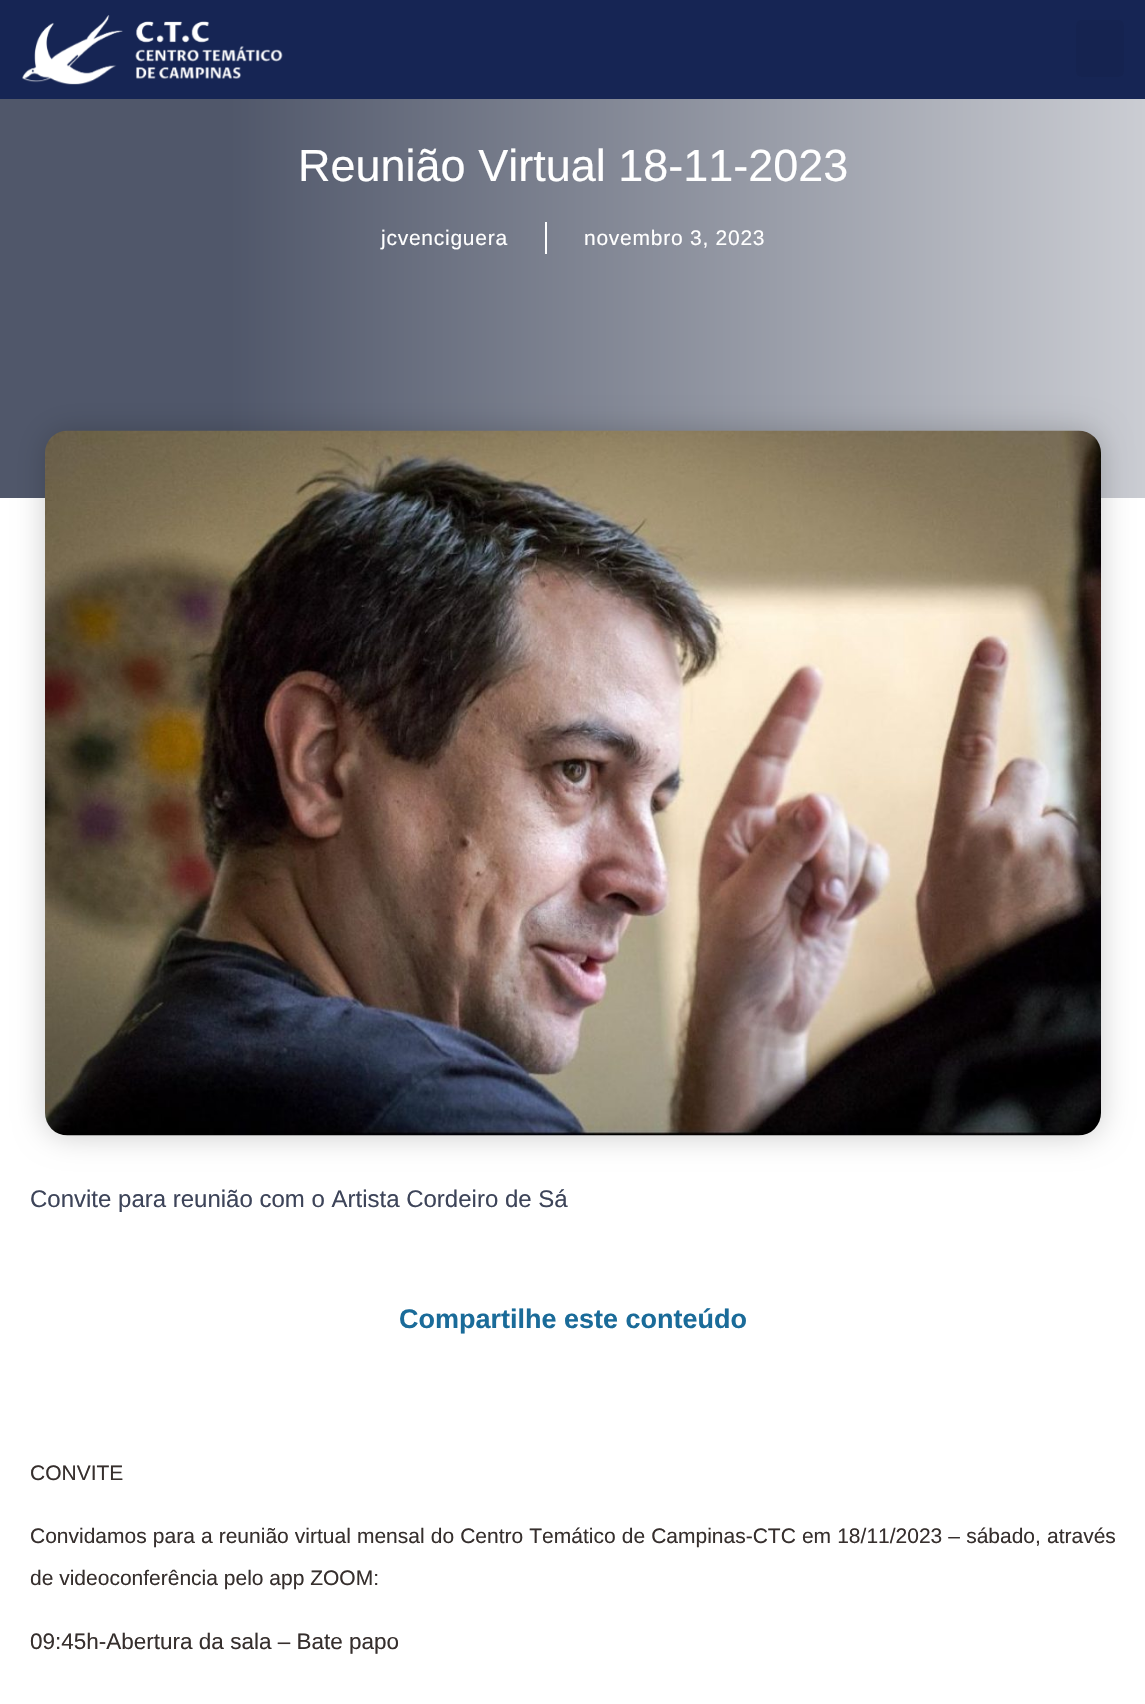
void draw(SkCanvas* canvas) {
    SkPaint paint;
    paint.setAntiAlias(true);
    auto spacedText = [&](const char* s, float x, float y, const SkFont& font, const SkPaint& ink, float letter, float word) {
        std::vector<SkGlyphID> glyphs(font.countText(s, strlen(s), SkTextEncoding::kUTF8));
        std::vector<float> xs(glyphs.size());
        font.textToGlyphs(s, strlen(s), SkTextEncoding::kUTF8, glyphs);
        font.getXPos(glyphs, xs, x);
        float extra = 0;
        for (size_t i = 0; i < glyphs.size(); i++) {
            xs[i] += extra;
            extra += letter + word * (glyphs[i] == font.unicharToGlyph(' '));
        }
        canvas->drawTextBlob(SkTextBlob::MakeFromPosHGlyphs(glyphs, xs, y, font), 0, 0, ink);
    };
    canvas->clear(0xFFFFFFFF);
    paint.setColor(0xFF162554);
    canvas->drawRect(SkRect::MakeXYWH(0, 0, 1145, 99), paint);
    canvas->drawImageRect(SkImages::DeferredFromEncodedData(SkData::MakeFromFileName("img1.png")), SkRect::MakeXYWH(22, 15, 261, 70), SkSamplingOptions());
    paint.setColor(0xFF152350);
    canvas->drawRoundRect(SkRect::MakeXYWH(1076, 20, 48, 57), 5, 5, paint);
    {
        const SkColor colors[] = {0xFF50576A, 0xFFCBCDD3};
        const float stops[] = {0.2f, 1};
        const SkPoint ends[] = {{0, 261}, {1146, 261}};
        paint.setShader(SkGradientShader::MakeLinear(ends, colors, stops, 2, SkTileMode::kClamp));
        paint.setAlpha(255);
    }
    canvas->drawRect(SkRect::MakeXYWH(0, 99, 1145, 399), paint);
    SkFont font1(fontMgr->matchFamilyStyle("Liberation Sans", SkFontStyle::Normal()), 45);
    font1.setSubpixel(true);
    paint.setShader(nullptr);
    paint.setColor(0xFFFFFFFF);
    canvas->drawString("Reunião Virtual 18-11-2023", 298, 181, font1, paint);
    SkFont font2(fontMgr->matchFamilyStyle("Liberation Sans", SkFontStyle::Normal()), 21);
    font2.setSubpixel(true);
    spacedText("jcvenciguera", 381, 245, font2, paint, 0.75f, 0);
    canvas->drawRect(SkRect::MakeXYWH(545, 222, 2, 32), paint);
    spacedText("novembro 3, 2023", 584, 245, font2, paint, 0.75f, 0);
    paint.setColor(0x33000000);
    paint.setMaskFilter(SkMaskFilter::MakeBlur(kNormal_SkBlurStyle, 15));
    canvas->drawRoundRect(SkRect::MakeXYWH(45, 431, 1056, 705), 23, 23, paint);
    paint.setMaskFilter(nullptr);
    canvas->drawImageRect(SkImages::DeferredFromEncodedData(SkData::MakeFromFileName("img2.png")), SkRect::MakeXYWH(45, 430, 1056, 706), SkSamplingOptions());
    SkFont font3(fontMgr->matchFamilyStyle("Liberation Sans", SkFontStyle::Normal()), 24);
    font3.setSubpixel(true);
    paint.setColor(0xFF3D4459);
    canvas->drawString("Convite para reunião com o Artista Cordeiro de Sá", 30, 1207, font3, paint);
    SkFont font4(fontMgr->matchFamilyStyle("Liberation Sans", SkFontStyle::Bold()), 27);
    font4.setSubpixel(true);
    paint.setColor(0xFF1A6B99);
    canvas->drawString("Compartilhe este conteúdo", 399, 1328, font4, paint);
    paint.setColor(0xFF362F2D);
    canvas->drawString("CONVITE", 30, 1480, font2, paint);
    spacedText("Convidamos para a reunião virtual mensal do Centro Temático de Campinas-CTC em 18/11/2023 – sábado, através", 30, 1543, font2, paint, 0, 0.25f);
    canvas->drawString("de videoconferência pelo app ZOOM:", 30, 1585, font2, paint);
    SkFont font5(fontMgr->matchFamilyStyle("Liberation Sans", SkFontStyle::Normal()), 22.5f);
    font5.setSubpixel(true);
    canvas->drawString("09:45h-Abertura da sala – Bate papo", 30, 1649, font5, paint);
}
